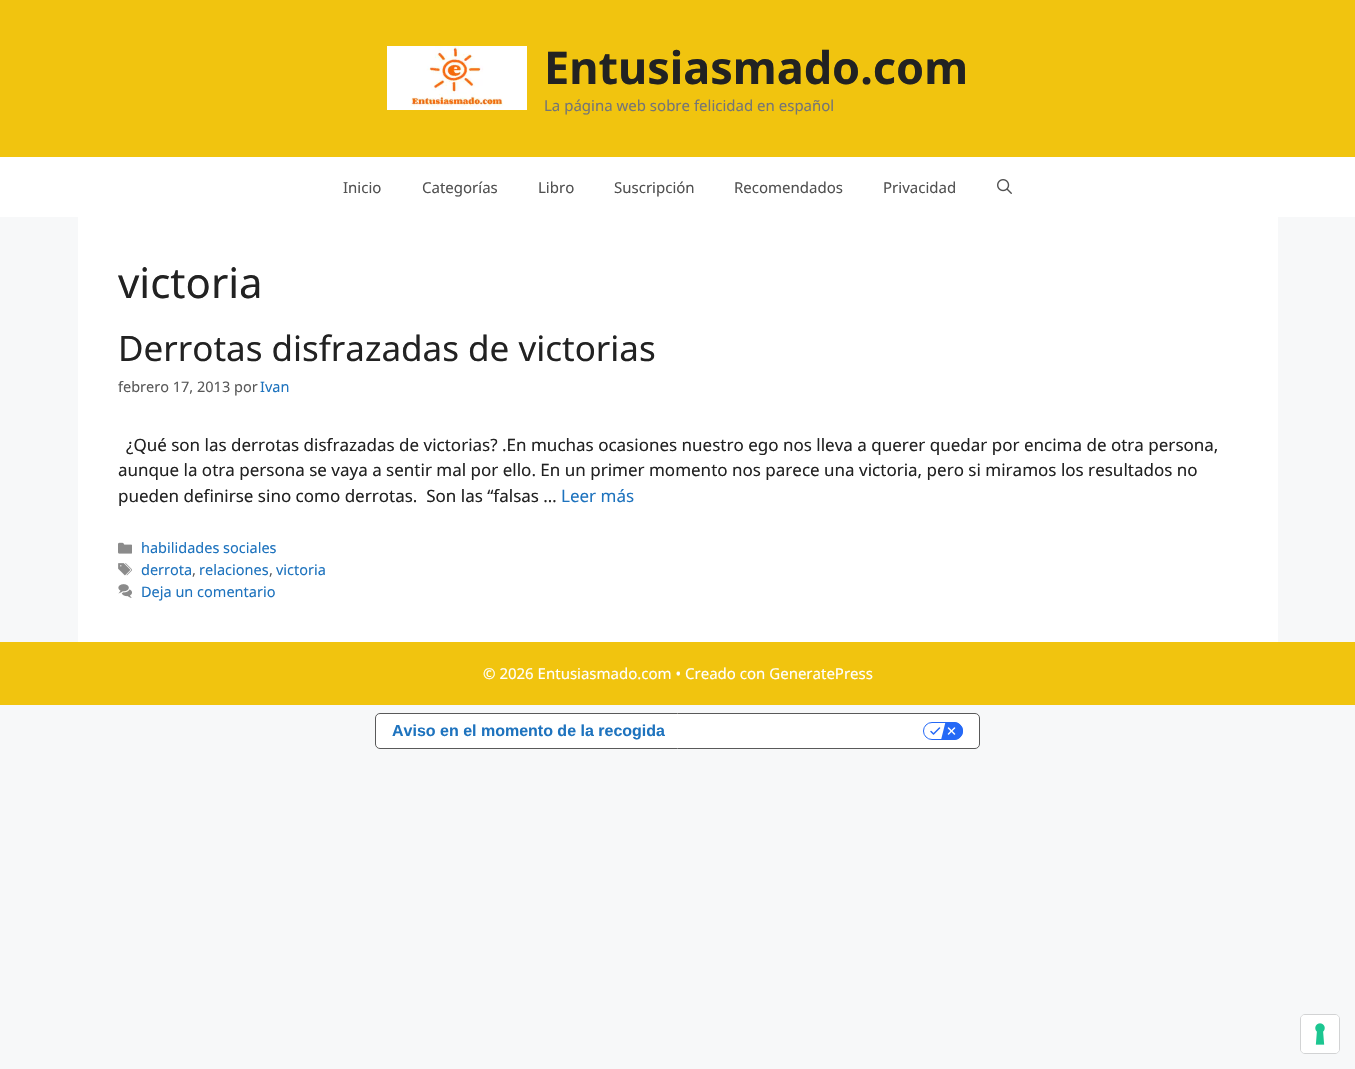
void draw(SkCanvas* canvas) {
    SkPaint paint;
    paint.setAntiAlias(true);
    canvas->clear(0xFFF7F8F9);
    paint.setColor(0xFFF1C40F);
    canvas->drawRect(SkRect::MakeXYWH(0, 0, 1355, 157), paint);
    canvas->drawImageRect(SkImages::DeferredFromEncodedData(SkData::MakeFromFileName("img1.png")), SkRect::MakeXYWH(387, 46, 140, 64), SkSamplingOptions());
    SkFont font1(fontMgr->matchFamilyStyle("Noto Sans", SkFontStyle::Bold()), 45);
    font1.setSubpixel(true);
    paint.setColor(0xFF222222);
    canvas->drawString("Entusiasmado.com", 544, 84, font1, paint);
    SkFont font2(fontMgr->matchFamilyStyle("Noto Sans", SkFontStyle::Normal()), 15);
    font2.setSubpixel(true);
    paint.setColor(0xFF757575);
    canvas->drawString("La página web sobre felicidad en español", 544, 111, font2, paint);
    paint.setColor(0xFFFFFFFF);
    canvas->drawRect(SkRect::MakeXYWH(0, 157, 1355, 60), paint);
    paint.setColor(0xFF515151);
    canvas->drawString("Inicio", 343, 193, font2, paint);
    canvas->drawString("Categorías", 422, 193, font2, paint);
    canvas->drawString("Libro", 538, 193, font2, paint);
    canvas->drawString("Suscripción", 614, 193, font2, paint);
    canvas->drawString("Recomendados", 734, 193, font2, paint);
    canvas->drawString("Privacidad", 883, 193, font2, paint);
    canvas->drawImageRect(SkImages::DeferredFromEncodedData(SkData::MakeFromFileName("img2.png")), SkRect::MakeXYWH(997, 179, 15, 15), SkSamplingOptions());
    paint.setColor(0xFFFFFFFF);
    canvas->drawRect(SkRect::MakeXYWH(78, 217, 1200, 425), paint);
    SkFont font3(fontMgr->matchFamilyStyle("Noto Sans", SkFontStyle::Normal()), 42);
    font3.setSubpixel(true);
    paint.setColor(0xFF222222);
    canvas->drawString("victoria", 118, 298, font3, paint);
    SkFont font4(fontMgr->matchFamilyStyle("Noto Sans", SkFontStyle::Normal()), 35);
    font4.setSubpixel(true);
    canvas->drawString("Derrotas disfrazadas de victorias", 118, 361, font4, paint);
    SkFont font5(fontMgr->matchFamilyStyle("Noto Sans", SkFontStyle::Normal()), 14.5f);
    font5.setSubpixel(true);
    paint.setColor(0xFF595959);
    canvas->drawString("febrero 17, 2013 por", 118, 392, font5, paint);
    paint.setColor(0xFF1E73BE);
    canvas->drawString("Ivan", 260, 392, font5, paint);
    SkFont font6(fontMgr->matchFamilyStyle("Noto Sans", SkFontStyle::Normal()), 17);
    font6.setSubpixel(true);
    paint.setColor(0xFF222222);
    canvas->drawString("¿Qué son las derrotas disfrazadas de victorias? .En muchas ocasiones nuestro ego nos lleva a querer quedar por encima de otra persona,", 126, 451, font6, paint);
    canvas->drawString("aunque la otra persona se vaya a sentir mal por ello. En un primer momento nos parece una victoria, pero si miramos los resultados no", 118, 476, font6, paint);
    canvas->drawString("pueden definirse sino como derrotas.  Son las “falsas …", 118, 502, font6, paint);
    paint.setColor(0xFF1E73BE);
    canvas->drawString("Leer más", 561, 502, font6, paint);
    canvas->drawImageRect(SkImages::DeferredFromEncodedData(SkData::MakeFromFileName("img3.png")), SkRect::MakeXYWH(118, 542, 14, 12), SkSamplingOptions());
    canvas->drawString("habilidades sociales", 141, 553, font5, paint);
    canvas->drawImageRect(SkImages::DeferredFromEncodedData(SkData::MakeFromFileName("img4.png")), SkRect::MakeXYWH(118, 563, 14, 13), SkSamplingOptions());
    canvas->drawString("derrota", 141, 575, font5, paint);
    paint.setColor(0xFF595959);
    canvas->drawString(",", 192, 575, font5, paint);
    paint.setColor(0xFF1E73BE);
    canvas->drawString("relaciones", 199, 575, font5, paint);
    paint.setColor(0xFF595959);
    canvas->drawString(",", 269, 575, font5, paint);
    paint.setColor(0xFF1E73BE);
    canvas->drawString("victoria", 276, 575, font5, paint);
    canvas->drawImageRect(SkImages::DeferredFromEncodedData(SkData::MakeFromFileName("img5.png")), SkRect::MakeXYWH(118, 584, 14, 14), SkSamplingOptions());
    canvas->drawString("Deja un comentario", 141, 597, font5, paint);
    paint.setColor(0xFFF1C40F);
    canvas->drawRect(SkRect::MakeXYWH(0, 642, 1355, 63), paint);
    paint.setColor(0xFFFFFFFF);
    canvas->drawString("© 2026 Entusiasmado.com • Creado con GeneratePress", 483, 679, font2, paint);
    canvas->drawRoundRect(SkRect::MakeXYWH(375.5f, 713.5f, 604, 35), 4.5f, 4.5f, paint);
    paint.setStyle(SkPaint::kStroke_Style);
    paint.setStrokeWidth(1);
    paint.setColor(0xFF595959);
    canvas->drawRoundRect(SkRect::MakeXYWH(375.5f, 713.5f, 604, 35), 4.5f, 4.5f, paint);
    SkFont font7(fontMgr->matchFamilyStyle("Liberation Sans", SkFontStyle::Bold()), 16);
    font7.setSubpixel(true);
    paint.setStyle(SkPaint::kFill_Style);
    paint.setColor(0xFF1E73BE);
    canvas->drawString("Aviso en el momento de la recogida", 392, 736, font7, paint);
    canvas->drawImageRect(SkImages::DeferredFromEncodedData(SkData::MakeFromFileName("img6.png")), SkRect::MakeXYWH(923, 722, 40, 18), SkSamplingOptions());
    paint.setStyle(SkPaint::kStroke_Style);
    paint.setColor(0xFFD2D3D4);
    canvas->drawRoundRect(SkRect::MakeXYWH(1300.5f, 1014.5f, 39, 39), 4.5f, 4.5f, paint);
    paint.setStyle(SkPaint::kFill_Style);
    paint.setColor(0xFFFFFFFF);
    canvas->drawRoundRect(SkRect::MakeXYWH(1301, 1015, 38, 38), 4, 4, paint);
    canvas->drawImageRect(SkImages::DeferredFromEncodedData(SkData::MakeFromFileName("img7.png")), SkRect::MakeXYWH(1315, 1023, 10, 22), SkSamplingOptions());
}
